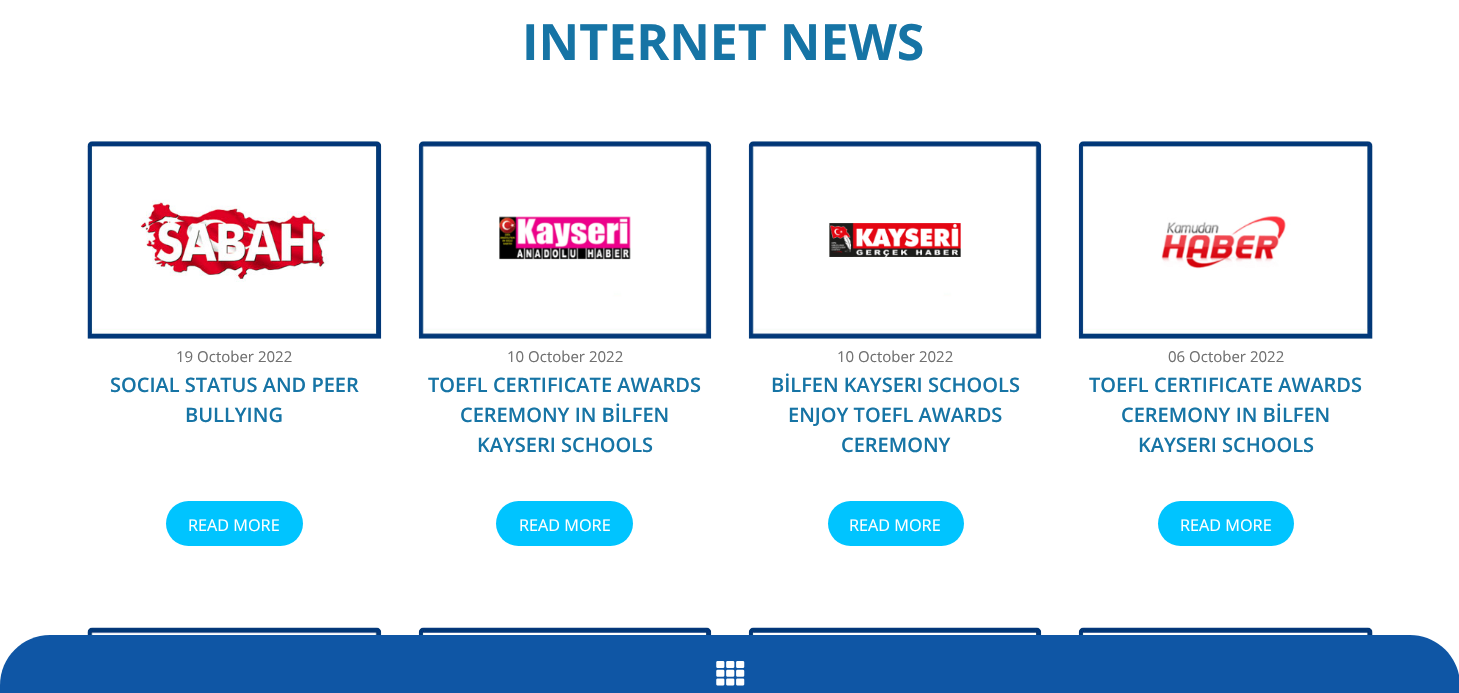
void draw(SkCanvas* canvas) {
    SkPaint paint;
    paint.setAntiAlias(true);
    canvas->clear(0xFFFFFFFF);
    SkFont font1(fontMgr->matchFamilyStyle("Open Sans", SkFontStyle::Bold()), 50);
    font1.setSubpixel(true);
    paint.setColor(0xFF1674A5);
    canvas->drawString("INTERNET NEWS", 522, 60, font1, paint);
    paint.setColor(0xFFF7F7F7);
    canvas->drawPath(SkPathBuilder().moveTo(92, 141).lineTo(377, 141).cubicTo(379, 141, 381, 143, 381, 145).lineTo(381, 339).lineTo(88, 339).lineTo(88, 145).cubicTo(88, 143, 90, 141, 92, 141).close().detach(), paint);
    canvas->drawImageRect(SkImages::DeferredFromEncodedData(SkData::MakeFromFileName("img1.png")), SkRect::MakeXYWH(87, 141, 295, 198), SkSamplingOptions());
    SkFont font2(fontMgr->matchFamilyStyle("Open Sans", SkFontStyle::Normal()), 15);
    font2.setSubpixel(true);
    paint.setColor(0xFF707070);
    canvas->drawString("19 October 2022", 176, 362, font2, paint);
    SkFont font3(fontMgr->matchFamilyStyle("Open Sans", SkFontStyle(600, SkFontStyle::kNormal_Width, SkFontStyle::kUpright_Slant)), 20);
    font3.setSubpixel(true);
    paint.setColor(0xFF1674A5);
    canvas->drawString("SOCIAL STATUS AND PEER", 110, 392, font3, paint);
    canvas->drawString("BULLYING", 185, 422, font3, paint);
    paint.setColor(0xFF00C4FF);
    canvas->drawRoundRect(SkRect::MakeXYWH(166, 501, 137, 45), 22.5f, 22.5f, paint);
    SkFont font4(fontMgr->matchFamilyStyle("Open Sans", SkFontStyle::Normal()), 16.25f);
    font4.setSubpixel(true);
    paint.setColor(0xFFFFFFFF);
    canvas->drawString("READ MORE", 188, 531, font4, paint);
    paint.setColor(0xFFF7F7F7);
    canvas->drawPath(SkPathBuilder().moveTo(423, 141).lineTo(707, 141).cubicTo(709, 141, 711, 143, 711, 145).lineTo(711, 339).lineTo(419, 339).lineTo(419, 145).cubicTo(419, 143, 421, 141, 423, 141).close().detach(), paint);
    canvas->drawImageRect(SkImages::DeferredFromEncodedData(SkData::MakeFromFileName("img2.png")), SkRect::MakeXYWH(418, 141, 294, 198), SkSamplingOptions());
    paint.setColor(0xFF707070);
    canvas->drawString("10 October 2022", 507, 362, font2, paint);
    paint.setColor(0xFF1674A5);
    canvas->drawString("TOEFL CERTIFICATE AWARDS", 428, 392, font3, paint);
    canvas->drawString("CEREMONY IN BİLFEN", 460, 422, font3, paint);
    canvas->drawString("KAYSERI SCHOOLS", 477, 452, font3, paint);
    paint.setColor(0xFF00C4FF);
    canvas->drawRoundRect(SkRect::MakeXYWH(496, 501, 137, 45), 22.5f, 22.5f, paint);
    paint.setColor(0xFFFFFFFF);
    canvas->drawString("READ MORE", 519, 531, font4, paint);
    paint.setColor(0xFFF7F7F7);
    canvas->drawPath(SkPathBuilder().moveTo(753, 141).lineTo(1037, 141).cubicTo(1039, 141, 1041, 143, 1041, 145).lineTo(1041, 339).lineTo(749, 339).lineTo(749, 145).cubicTo(749, 143, 751, 141, 753, 141).close().detach(), paint);
    canvas->drawImageRect(SkImages::DeferredFromEncodedData(SkData::MakeFromFileName("img3.png")), SkRect::MakeXYWH(748, 141, 294, 198), SkSamplingOptions());
    paint.setColor(0xFF707070);
    canvas->drawString("10 October 2022", 837, 362, font2, paint);
    paint.setColor(0xFF1674A5);
    canvas->drawString("BİLFEN KAYSERI SCHOOLS", 771, 392, font3, paint);
    canvas->drawString("ENJOY TOEFL AWARDS", 788, 422, font3, paint);
    canvas->drawString("CEREMONY", 841, 452, font3, paint);
    paint.setColor(0xFF00C4FF);
    canvas->drawRoundRect(SkRect::MakeXYWH(828, 501, 136, 45), 22.5f, 22.5f, paint);
    paint.setColor(0xFFFFFFFF);
    canvas->drawString("READ MORE", 849, 531, font4, paint);
    paint.setColor(0xFFF7F7F7);
    canvas->drawPath(SkPathBuilder().moveTo(1083, 141).lineTo(1369, 141).cubicTo(1371, 141, 1373, 143, 1373, 145).lineTo(1373, 339).lineTo(1079, 339).lineTo(1079, 145).cubicTo(1079, 143, 1081, 141, 1083, 141).close().detach(), paint);
    canvas->drawImageRect(SkImages::DeferredFromEncodedData(SkData::MakeFromFileName("img4.png")), SkRect::MakeXYWH(1078, 141, 295, 198), SkSamplingOptions());
    paint.setColor(0xFF707070);
    canvas->drawString("06 October 2022", 1168, 362, font2, paint);
    paint.setColor(0xFF1674A5);
    canvas->drawString("TOEFL CERTIFICATE AWARDS", 1089, 392, font3, paint);
    canvas->drawString("CEREMONY IN BİLFEN", 1121, 422, font3, paint);
    canvas->drawString("KAYSERI SCHOOLS", 1138, 452, font3, paint);
    paint.setColor(0xFF00C4FF);
    canvas->drawRoundRect(SkRect::MakeXYWH(1158, 501, 136, 45), 22.5f, 22.5f, paint);
    paint.setColor(0xFFFFFFFF);
    canvas->drawString("READ MORE", 1180, 531, font4, paint);
    canvas->drawImageRect(SkImages::DeferredFromEncodedData(SkData::MakeFromFileName("img5.png")), SkRect::MakeXYWH(87, 627, 295, 8), SkSamplingOptions());
    canvas->drawImageRect(SkImages::DeferredFromEncodedData(SkData::MakeFromFileName("img6.png")), SkRect::MakeXYWH(418, 627, 294, 8), SkSamplingOptions());
    canvas->drawImageRect(SkImages::DeferredFromEncodedData(SkData::MakeFromFileName("img7.png")), SkRect::MakeXYWH(748, 627, 294, 8), SkSamplingOptions());
    paint.setColor(0xFFF7F7F7);
    canvas->drawPath(SkPathBuilder().moveTo(1083, 628).lineTo(1369, 628).cubicTo(1371, 628, 1373, 630, 1373, 632).lineTo(1373, 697).lineTo(1079, 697).lineTo(1079, 632).cubicTo(1079, 630, 1081, 628, 1083, 628).close().detach(), paint);
    canvas->drawImageRect(SkImages::DeferredFromEncodedData(SkData::MakeFromFileName("img8.png")), SkRect::MakeXYWH(1078, 627, 295, 8), SkSamplingOptions());
    paint.setColor(0xFF0F56A5);
    canvas->drawPath(SkPathBuilder().moveTo(50, 635).lineTo(1410, 635).cubicTo(1437.5f, 635, 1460, 657.5f, 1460, 685).lineTo(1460, 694).lineTo(0, 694).lineTo(0, 685).cubicTo(0, 657.5f, 22.5f, 635, 50, 635).close().detach(), paint);
    canvas->drawImageRect(SkImages::DeferredFromEncodedData(SkData::MakeFromFileName("img9.png")), SkRect::MakeXYWH(716, 661, 29, 25), SkSamplingOptions());
}
